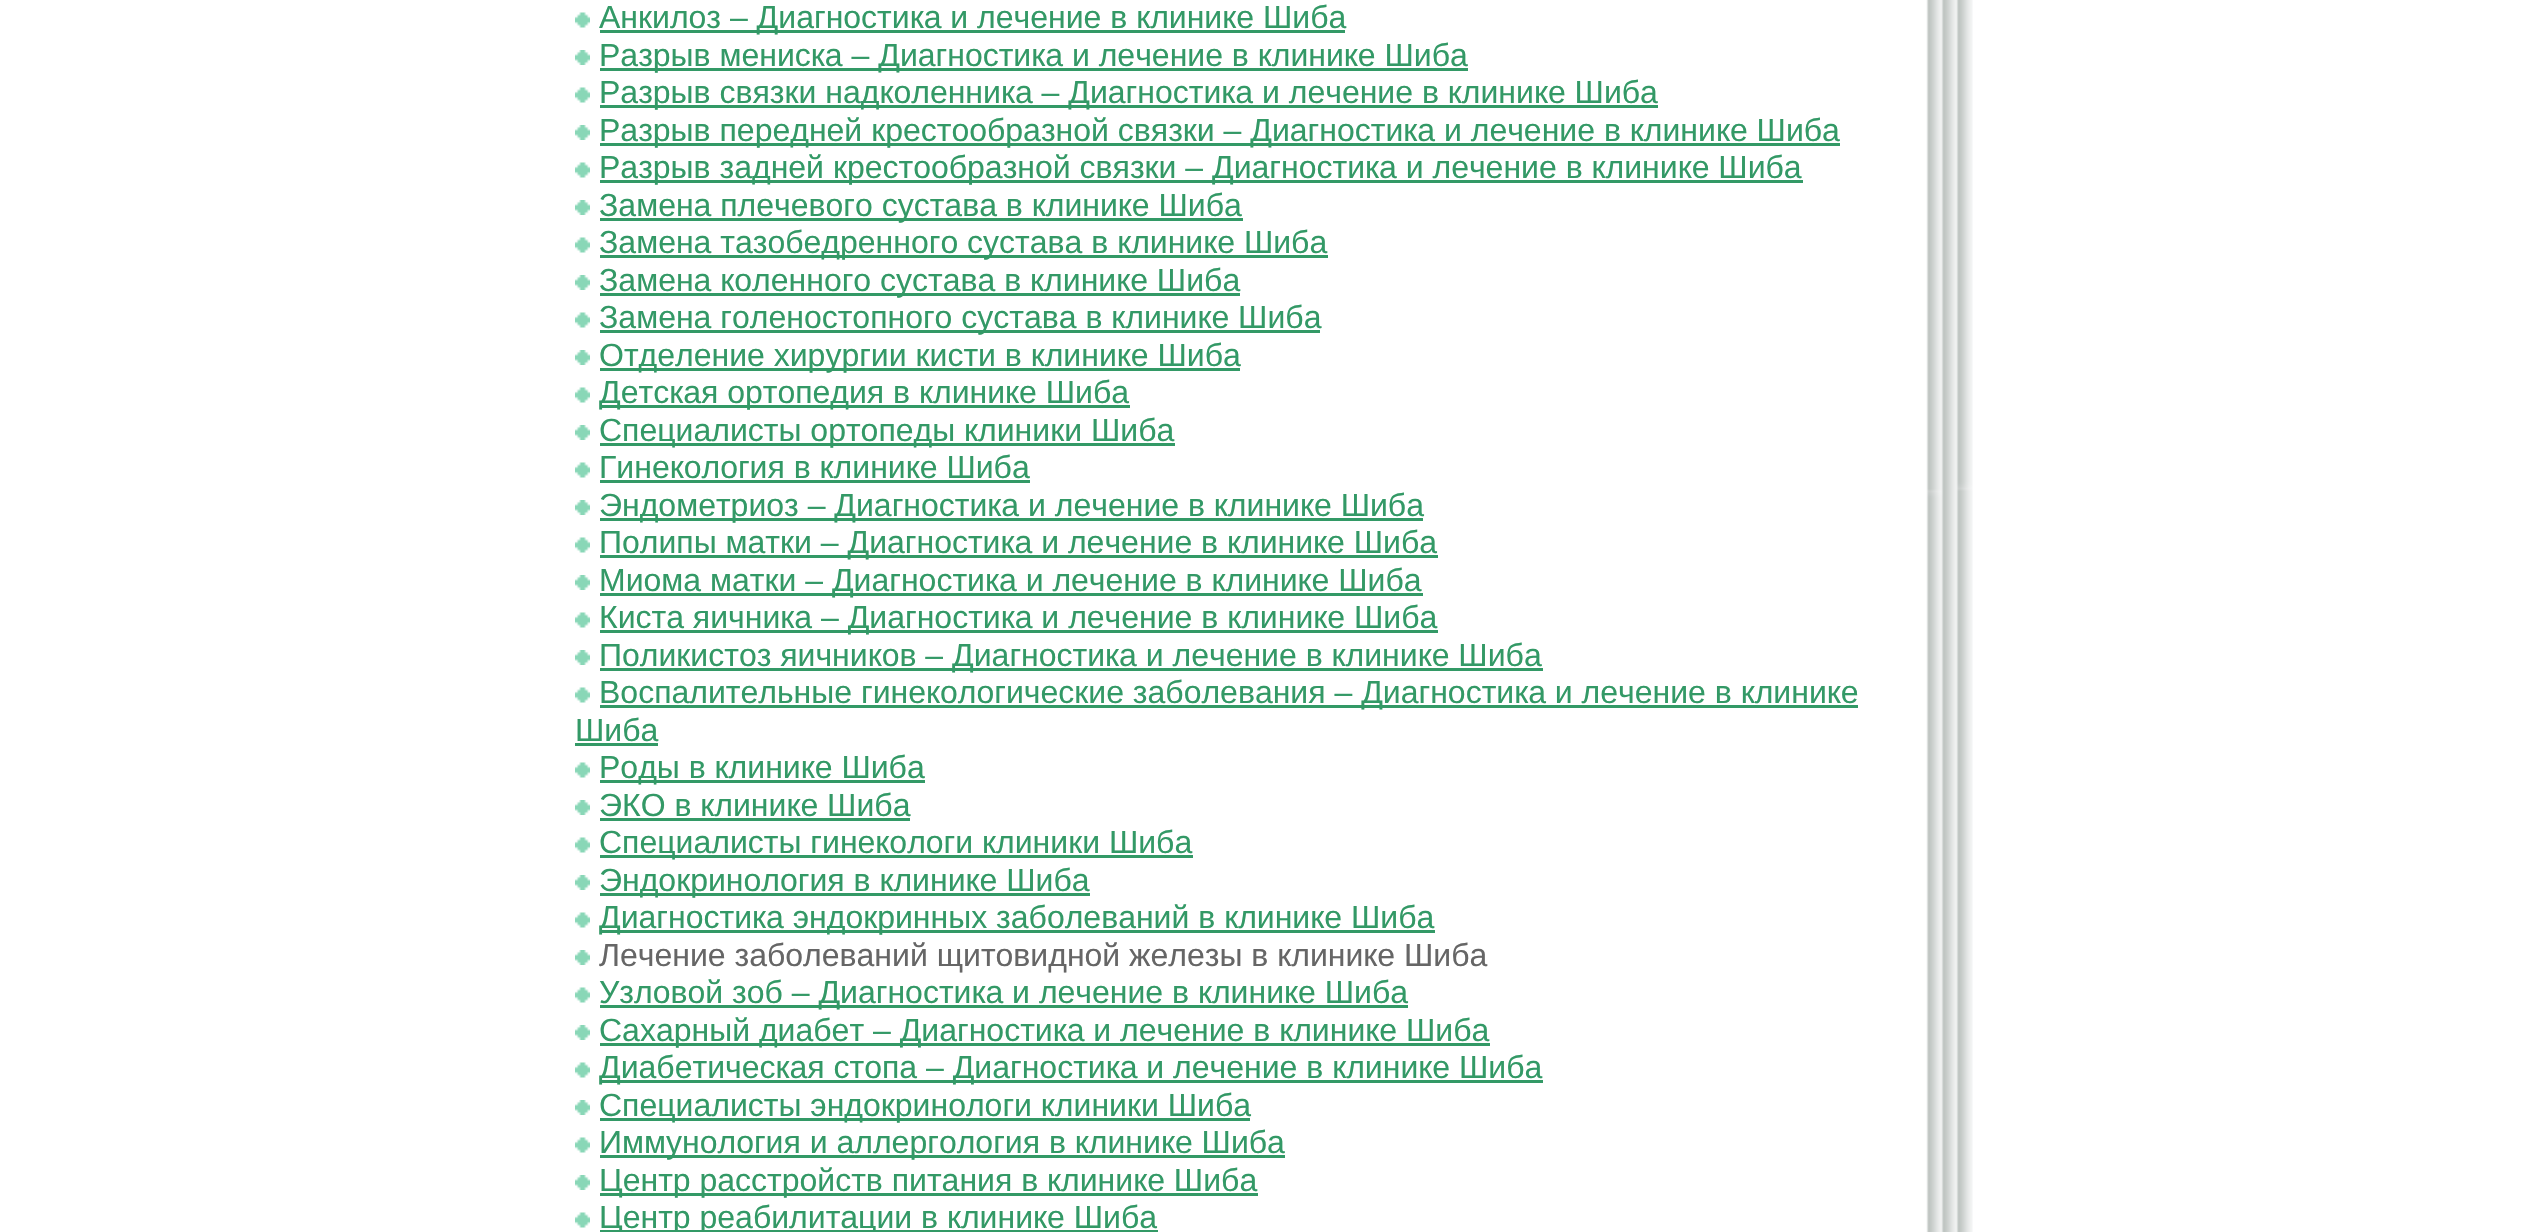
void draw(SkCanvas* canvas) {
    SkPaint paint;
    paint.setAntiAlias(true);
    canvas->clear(0xFFFFFFFF);
    canvas->drawImageRect(SkImages::DeferredFromEncodedData(SkData::MakeFromFileName("img1.png")), SkRect::MakeXYWH(575, 12, 15, 16), SkSamplingOptions());
    paint.setColor(0xFF339966);
    canvas->drawRect(SkRect::MakeXYWH(600, 30, 745, 3), paint);
    SkFont font1(fontMgr->matchFamilyStyle("Liberation Sans", SkFontStyle::Normal()), 32);
    font1.setSubpixel(true);
    canvas->drawString("Анкилоз – Диагностика и лечение в клинике Шиба", 599, 28, font1, paint);
    canvas->drawImageRect(SkImages::DeferredFromEncodedData(SkData::MakeFromFileName("img2.png")), SkRect::MakeXYWH(575, 50, 15, 15), SkSamplingOptions());
    canvas->drawRect(SkRect::MakeXYWH(600, 68, 868, 3), paint);
    canvas->drawString("Разрыв мениска – Диагностика и лечение в клинике Шиба", 599, 66, font1, paint);
    canvas->drawImageRect(SkImages::DeferredFromEncodedData(SkData::MakeFromFileName("img1.png")), SkRect::MakeXYWH(575, 87, 15, 16), SkSamplingOptions());
    canvas->drawRect(SkRect::MakeXYWH(600, 105, 1058, 3), paint);
    canvas->drawString("Разрыв связки надколенника – Диагностика и лечение в клинике Шиба", 599, 103, font1, paint);
    canvas->drawImageRect(SkImages::DeferredFromEncodedData(SkData::MakeFromFileName("img2.png")), SkRect::MakeXYWH(575, 125, 15, 15), SkSamplingOptions());
    canvas->drawRect(SkRect::MakeXYWH(600, 143, 1240, 3), paint);
    canvas->drawString("Разрыв передней крестообразной связки – Диагностика и лечение в клинике Шиба", 599, 141, font1, paint);
    canvas->drawImageRect(SkImages::DeferredFromEncodedData(SkData::MakeFromFileName("img1.png")), SkRect::MakeXYWH(575, 162, 15, 16), SkSamplingOptions());
    canvas->drawRect(SkRect::MakeXYWH(600, 180, 1203, 3), paint);
    canvas->drawString("Разрыв задней крестообразной связки – Диагностика и лечение в клинике Шиба", 599, 178, font1, paint);
    canvas->drawImageRect(SkImages::DeferredFromEncodedData(SkData::MakeFromFileName("img2.png")), SkRect::MakeXYWH(575, 200, 15, 15), SkSamplingOptions());
    canvas->drawRect(SkRect::MakeXYWH(600, 218, 643, 3), paint);
    canvas->drawString("Замена плечевого сустава в клинике Шиба", 599, 216, font1, paint);
    canvas->drawImageRect(SkImages::DeferredFromEncodedData(SkData::MakeFromFileName("img1.png")), SkRect::MakeXYWH(575, 237, 15, 16), SkSamplingOptions());
    canvas->drawRect(SkRect::MakeXYWH(600, 255, 728, 3), paint);
    canvas->drawString("Замена тазобедренного сустава в клинике Шиба", 599, 253, font1, paint);
    canvas->drawImageRect(SkImages::DeferredFromEncodedData(SkData::MakeFromFileName("img2.png")), SkRect::MakeXYWH(575, 275, 15, 15), SkSamplingOptions());
    canvas->drawRect(SkRect::MakeXYWH(600, 293, 640, 3), paint);
    canvas->drawString("Замена коленного сустава в клинике Шиба", 599, 291, font1, paint);
    canvas->drawImageRect(SkImages::DeferredFromEncodedData(SkData::MakeFromFileName("img1.png")), SkRect::MakeXYWH(575, 312, 15, 16), SkSamplingOptions());
    canvas->drawRect(SkRect::MakeXYWH(600, 330, 720, 3), paint);
    canvas->drawString("Замена голеностопного сустава в клинике Шиба", 599, 328, font1, paint);
    canvas->drawImageRect(SkImages::DeferredFromEncodedData(SkData::MakeFromFileName("img2.png")), SkRect::MakeXYWH(575, 350, 15, 15), SkSamplingOptions());
    canvas->drawRect(SkRect::MakeXYWH(600, 368, 640, 3), paint);
    canvas->drawString("Отделение хирургии кисти в клинике Шиба", 599, 366, font1, paint);
    canvas->drawImageRect(SkImages::DeferredFromEncodedData(SkData::MakeFromFileName("img1.png")), SkRect::MakeXYWH(575, 387, 15, 16), SkSamplingOptions());
    canvas->drawRect(SkRect::MakeXYWH(600, 405, 530, 3), paint);
    canvas->drawString("Детская ортопедия в клинике Шиба", 599, 403, font1, paint);
    canvas->drawImageRect(SkImages::DeferredFromEncodedData(SkData::MakeFromFileName("img2.png")), SkRect::MakeXYWH(575, 425, 15, 15), SkSamplingOptions());
    canvas->drawRect(SkRect::MakeXYWH(600, 443, 575, 3), paint);
    canvas->drawString("Специалисты ортопеды клиники Шиба", 599, 441, font1, paint);
    canvas->drawImageRect(SkImages::DeferredFromEncodedData(SkData::MakeFromFileName("img1.png")), SkRect::MakeXYWH(575, 462, 15, 16), SkSamplingOptions());
    canvas->drawString("Гинекология в клинике Шиба", 599, 478, font1, paint);
    canvas->drawRect(SkRect::MakeXYWH(600, 480, 430, 3), paint);
    canvas->drawImageRect(SkImages::DeferredFromEncodedData(SkData::MakeFromFileName("img2.png")), SkRect::MakeXYWH(575, 500, 15, 15), SkSamplingOptions());
    canvas->drawRect(SkRect::MakeXYWH(600, 518, 823, 3), paint);
    canvas->drawString("Эндометриоз – Диагностика и лечение в клинике Шиба", 599, 516, font1, paint);
    canvas->drawImageRect(SkImages::DeferredFromEncodedData(SkData::MakeFromFileName("img1.png")), SkRect::MakeXYWH(575, 537, 15, 16), SkSamplingOptions());
    canvas->drawRect(SkRect::MakeXYWH(600, 555, 838, 3), paint);
    canvas->drawString("Полипы матки – Диагностика и лечение в клинике Шиба", 599, 553, font1, paint);
    canvas->drawImageRect(SkImages::DeferredFromEncodedData(SkData::MakeFromFileName("img2.png")), SkRect::MakeXYWH(575, 575, 15, 15), SkSamplingOptions());
    canvas->drawRect(SkRect::MakeXYWH(600, 593, 823, 3), paint);
    canvas->drawString("Миома матки – Диагностика и лечение в клинике Шиба", 599, 591, font1, paint);
    canvas->drawImageRect(SkImages::DeferredFromEncodedData(SkData::MakeFromFileName("img1.png")), SkRect::MakeXYWH(575, 612, 15, 16), SkSamplingOptions());
    canvas->drawRect(SkRect::MakeXYWH(600, 630, 838, 3), paint);
    canvas->drawString("Киста яичника – Диагностика и лечение в клинике Шиба", 599, 628, font1, paint);
    canvas->drawImageRect(SkImages::DeferredFromEncodedData(SkData::MakeFromFileName("img2.png")), SkRect::MakeXYWH(575, 650, 15, 15), SkSamplingOptions());
    canvas->drawRect(SkRect::MakeXYWH(600, 668, 943, 3), paint);
    canvas->drawString("Поликистоз яичников – Диагностика и лечение в клинике Шиба", 599, 666, font1, paint);
    canvas->drawImageRect(SkImages::DeferredFromEncodedData(SkData::MakeFromFileName("img1.png")), SkRect::MakeXYWH(575, 687, 15, 16), SkSamplingOptions());
    canvas->drawRect(SkRect::MakeXYWH(600, 705, 1258, 3), paint);
    canvas->drawString("Воспалительные гинекологические заболевания – Диагностика и лечение в клинике", 599, 703, font1, paint);
    canvas->drawString("Шиба", 575, 741, font1, paint);
    canvas->drawRect(SkRect::MakeXYWH(575, 743, 83, 3), paint);
    canvas->drawImageRect(SkImages::DeferredFromEncodedData(SkData::MakeFromFileName("img3.png")), SkRect::MakeXYWH(575, 762, 15, 16), SkSamplingOptions());
    canvas->drawRect(SkRect::MakeXYWH(600, 780, 325, 3), paint);
    canvas->drawString("Роды в клинике Шиба", 599, 778, font1, paint);
    canvas->drawImageRect(SkImages::DeferredFromEncodedData(SkData::MakeFromFileName("img2.png")), SkRect::MakeXYWH(575, 800, 15, 15), SkSamplingOptions());
    canvas->drawString("ЭКО в клинике Шиба", 599, 816, font1, paint);
    canvas->drawRect(SkRect::MakeXYWH(600, 818, 310, 3), paint);
    canvas->drawImageRect(SkImages::DeferredFromEncodedData(SkData::MakeFromFileName("img1.png")), SkRect::MakeXYWH(575, 837, 15, 16), SkSamplingOptions());
    canvas->drawRect(SkRect::MakeXYWH(600, 855, 593, 3), paint);
    canvas->drawString("Специалисты гинекологи клиники Шиба", 599, 853, font1, paint);
    canvas->drawImageRect(SkImages::DeferredFromEncodedData(SkData::MakeFromFileName("img2.png")), SkRect::MakeXYWH(575, 875, 15, 15), SkSamplingOptions());
    canvas->drawRect(SkRect::MakeXYWH(600, 893, 490, 3), paint);
    canvas->drawString("Эндокринология в клинике Шиба", 599, 891, font1, paint);
    canvas->drawImageRect(SkImages::DeferredFromEncodedData(SkData::MakeFromFileName("img1.png")), SkRect::MakeXYWH(575, 912, 15, 16), SkSamplingOptions());
    canvas->drawRect(SkRect::MakeXYWH(600, 930, 835, 3), paint);
    canvas->drawString("Диагностика эндокринных заболеваний в клинике Шиба", 599, 928, font1, paint);
    canvas->drawImageRect(SkImages::DeferredFromEncodedData(SkData::MakeFromFileName("img2.png")), SkRect::MakeXYWH(575, 950, 15, 15), SkSamplingOptions());
    paint.setColor(0xFF666666);
    canvas->drawString("Лечение заболеваний щитовидной железы в клинике Шиба", 599, 966, font1, paint);
    canvas->drawImageRect(SkImages::DeferredFromEncodedData(SkData::MakeFromFileName("img1.png")), SkRect::MakeXYWH(575, 987, 15, 16), SkSamplingOptions());
    paint.setColor(0xFF339966);
    canvas->drawRect(SkRect::MakeXYWH(600, 1005, 808, 3), paint);
    canvas->drawString("Узловой зоб – Диагностика и лечение в клинике Шиба", 599, 1003, font1, paint);
    canvas->drawImageRect(SkImages::DeferredFromEncodedData(SkData::MakeFromFileName("img2.png")), SkRect::MakeXYWH(575, 1025, 15, 15), SkSamplingOptions());
    canvas->drawRect(SkRect::MakeXYWH(600, 1043, 890, 3), paint);
    canvas->drawString("Сахарный диабет – Диагностика и лечение в клинике Шиба", 599, 1041, font1, paint);
    canvas->drawImageRect(SkImages::DeferredFromEncodedData(SkData::MakeFromFileName("img1.png")), SkRect::MakeXYWH(575, 1062, 15, 16), SkSamplingOptions());
    canvas->drawRect(SkRect::MakeXYWH(600, 1080, 943, 3), paint);
    canvas->drawString("Диабетическая стопа – Диагностика и лечение в клинике Шиба", 599, 1078, font1, paint);
    canvas->drawImageRect(SkImages::DeferredFromEncodedData(SkData::MakeFromFileName("img2.png")), SkRect::MakeXYWH(575, 1100, 15, 15), SkSamplingOptions());
    canvas->drawRect(SkRect::MakeXYWH(600, 1118, 650, 3), paint);
    canvas->drawString("Специалисты эндокринологи клиники Шиба", 599, 1116, font1, paint);
    canvas->drawImageRect(SkImages::DeferredFromEncodedData(SkData::MakeFromFileName("img1.png")), SkRect::MakeXYWH(575, 1137, 15, 16), SkSamplingOptions());
    canvas->drawRect(SkRect::MakeXYWH(600, 1155, 685, 3), paint);
    canvas->drawString("Иммунология и аллергология в клинике Шиба", 599, 1153, font1, paint);
    canvas->drawImageRect(SkImages::DeferredFromEncodedData(SkData::MakeFromFileName("img2.png")), SkRect::MakeXYWH(575, 1175, 15, 15), SkSamplingOptions());
    canvas->drawRect(SkRect::MakeXYWH(600, 1193, 658, 3), paint);
    canvas->drawString("Центр расстройств питания в клинике Шиба", 599, 1191, font1, paint);
    canvas->drawImageRect(SkImages::DeferredFromEncodedData(SkData::MakeFromFileName("img1.png")), SkRect::MakeXYWH(575, 1212, 15, 16), SkSamplingOptions());
    canvas->drawRect(SkRect::MakeXYWH(600, 1230, 558, 2), paint);
    canvas->drawString("Центр реабилитации в клинике Шиба", 599, 1228, font1, paint);
    canvas->drawImageRect(SkImages::DeferredFromEncodedData(SkData::MakeFromFileName("img4.png")), SkRect::MakeXYWH(1926, 0, 47, 1232), SkSamplingOptions());
}
